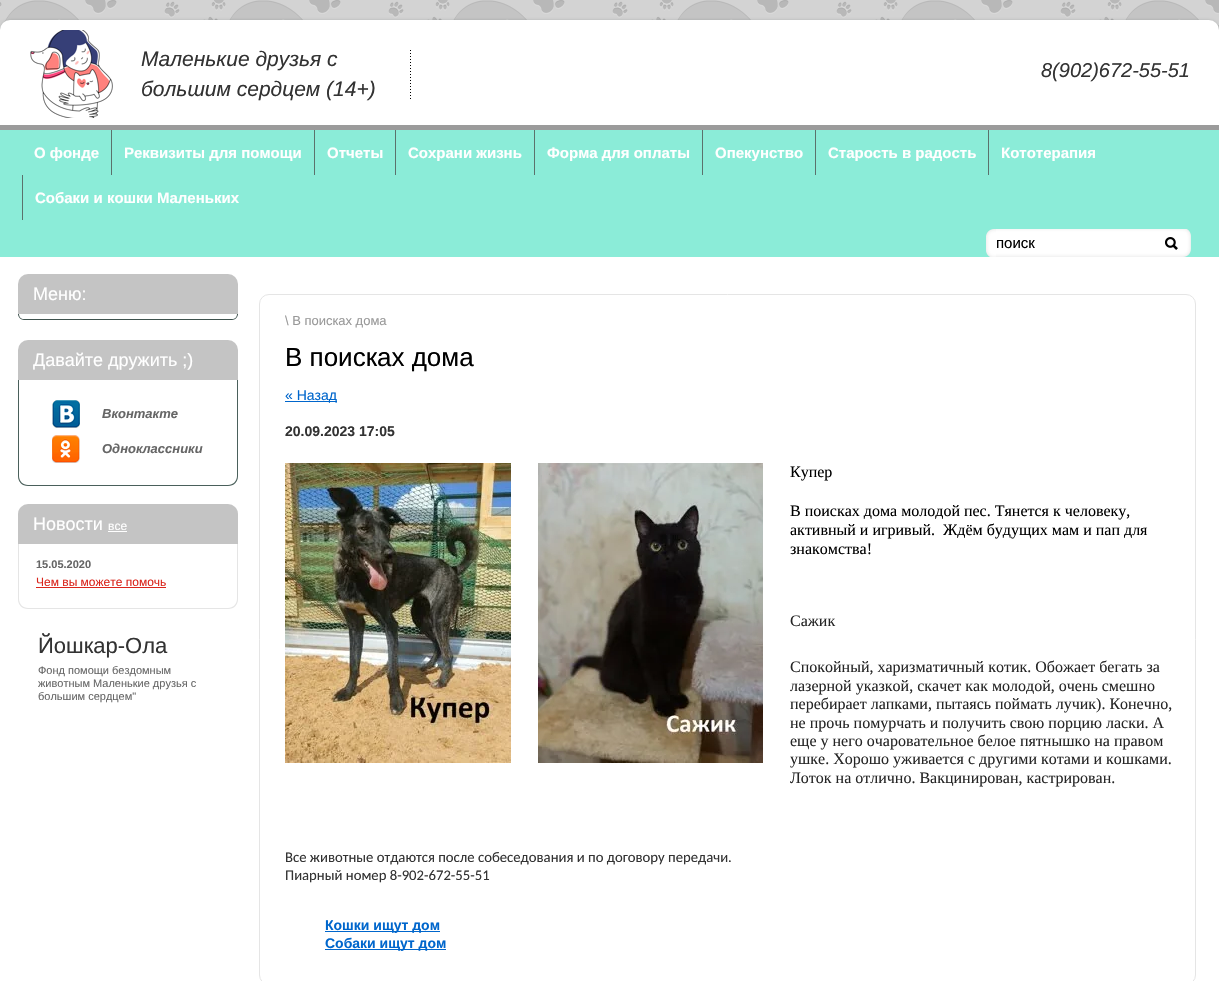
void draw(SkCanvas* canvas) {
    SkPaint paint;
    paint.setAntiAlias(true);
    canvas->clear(0xFFFFFFFF);
    canvas->drawImageRect(SkImages::DeferredFromEncodedData(SkData::MakeFromFileName("img1.png")), SkRect::MakeXYWH(0, 0, 1219, 30), SkSamplingOptions());
    paint.setColor(0xFF2F3B38);
    paint.setMaskFilter(SkMaskFilter::MakeBlur(kNormal_SkBlurStyle, 2.5f));
    canvas->drawRoundRect(SkRect::MakeXYWH(3, 23, 1213, 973), 7, 7, paint);
    paint.setMaskFilter(nullptr);
    paint.setColor(0xFFFFFFFF);
    canvas->drawRoundRect(SkRect::MakeXYWH(0, 20, 1219, 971), 10, 10, paint);
    canvas->drawImageRect(SkImages::DeferredFromEncodedData(SkData::MakeFromFileName("img2.png")), SkRect::MakeXYWH(30, 30, 83, 88), SkSamplingOptions());
    canvas->drawImageRect(SkImages::DeferredFromEncodedData(SkData::MakeFromFileName("img3.png")), SkRect::MakeXYWH(410, 50, 1, 49), SkSamplingOptions());
    SkFont font1(fontMgr->matchFamilyStyle("Liberation Sans", SkFontStyle::Italic()), 21);
    font1.setSubpixel(true);
    paint.setColor(0xFF333333);
    canvas->drawString("Маленькие друзья с", 141, 66, font1, paint);
    canvas->drawString("большим сердцем (14+)", 141, 96, font1, paint);
    SkFont font2(fontMgr->matchFamilyStyle("Liberation Sans", SkFontStyle::Italic()), 20);
    font2.setSubpixel(true);
    canvas->drawString("8(902)672-55-51", 1041, 77, font2, paint);
    paint.setColor(0xFF8BECD8);
    canvas->drawRect(SkRect::MakeXYWH(0, 130, 1219, 127), paint);
    paint.setColor(0xFF9B9B9B);
    canvas->drawRect(SkRect::MakeXYWH(0, 125, 1219, 5), paint);
    SkFont font3(fontMgr->matchFamilyStyle("Liberation Sans", SkFontStyle::Bold()), 15);
    font3.setSubpixel(true);
    paint.setColor(0xFFFFFFFF);
    canvas->drawString("О фонде", 34, 158, font3, paint);
    paint.setColor(0xFF5B716C);
    canvas->drawRect(SkRect::MakeXYWH(111, 130, 1, 45), paint);
    paint.setColor(0xFFFFFFFF);
    canvas->drawString("Реквизиты для помощи", 124, 158, font3, paint);
    paint.setColor(0xFF5B716C);
    canvas->drawRect(SkRect::MakeXYWH(314, 130, 1, 45), paint);
    paint.setColor(0xFFFFFFFF);
    canvas->drawString("Отчеты", 327, 158, font3, paint);
    paint.setColor(0xFF5B716C);
    canvas->drawRect(SkRect::MakeXYWH(395, 130, 1, 45), paint);
    paint.setColor(0xFFFFFFFF);
    canvas->drawString("Сохрани жизнь", 408, 158, font3, paint);
    paint.setColor(0xFF5B716C);
    canvas->drawRect(SkRect::MakeXYWH(534, 130, 1, 45), paint);
    paint.setColor(0xFFFFFFFF);
    canvas->drawString("Форма для оплаты", 547, 158, font3, paint);
    paint.setColor(0xFF5B716C);
    canvas->drawRect(SkRect::MakeXYWH(702, 130, 1, 45), paint);
    paint.setColor(0xFFFFFFFF);
    canvas->drawString("Опекунство", 715, 158, font3, paint);
    paint.setColor(0xFF5B716C);
    canvas->drawRect(SkRect::MakeXYWH(815, 130, 1, 45), paint);
    paint.setColor(0xFFFFFFFF);
    canvas->drawString("Старость в радость", 828, 158, font3, paint);
    paint.setColor(0xFF5B716C);
    canvas->drawRect(SkRect::MakeXYWH(988, 130, 1, 45), paint);
    paint.setColor(0xFFFFFFFF);
    canvas->drawString("Кототерапия", 1001, 158, font3, paint);
    paint.setColor(0xFF5B716C);
    canvas->drawRect(SkRect::MakeXYWH(22, 175, 1, 45), paint);
    paint.setColor(0xFFFFFFFF);
    canvas->drawString("Собаки и кошки Маленьких", 35, 203, font3, paint);
    canvas->drawImageRect(SkImages::DeferredFromEncodedData(SkData::MakeFromFileName("img4.png")), SkRect::MakeXYWH(986, 229, 10, 28), SkSamplingOptions());
    canvas->drawImageRect(SkImages::DeferredFromEncodedData(SkData::MakeFromFileName("img5.png")), SkRect::MakeXYWH(996, 229, 195, 28), SkSamplingOptions());
    SkFont font4(fontMgr->matchFamilyStyle("Liberation Sans", SkFontStyle::Normal()), 15);
    font4.setSubpixel(true);
    paint.setColor(0xFF000000);
    canvas->drawString("поиск", 996, 248, font4, paint);
    canvas->drawImageRect(SkImages::DeferredFromEncodedData(SkData::MakeFromFileName("img6.png")), SkRect::MakeXYWH(1165, 237, 13, 13), SkSamplingOptions());
    canvas->drawImageRect(SkImages::DeferredFromEncodedData(SkData::MakeFromFileName("img7.png")), SkRect::MakeXYWH(18, 274, 220, 40), SkSamplingOptions());
    SkFont font5(fontMgr->matchFamilyStyle("Liberation Sans", SkFontStyle::Normal()), 18);
    font5.setSubpixel(true);
    paint.setColor(0xFFFFFFFF);
    canvas->drawString("Меню:", 33, 300, font5, paint);
    paint.setColor(0xFF3E524D);
    canvas->drawPath(SkPathBuilder(SkPathFillType::kEvenOdd).moveTo(18, 314).lineTo(238, 314).cubicTo(238, 317, 235, 320, 232, 320).lineTo(24, 320).cubicTo(21, 320, 18, 317, 18, 314).close().moveTo(19, 314).lineTo(237, 314).cubicTo(237, 317, 235, 319, 232, 319).lineTo(24, 319).cubicTo(21, 319, 19, 317, 19, 314).close().detach(), paint);
    canvas->drawImageRect(SkImages::DeferredFromEncodedData(SkData::MakeFromFileName("img7.png")), SkRect::MakeXYWH(18, 340, 220, 40), SkSamplingOptions());
    paint.setColor(0xFFFFFFFF);
    canvas->drawString("Давайте дружить ;)", 33, 366, font5, paint);
    paint.setColor(0xFF4A605B);
    canvas->drawPath(SkPathBuilder(SkPathFillType::kEvenOdd).moveTo(18, 380).lineTo(238, 380).lineTo(238, 476).cubicTo(238, 482, 234, 486, 228, 486).lineTo(28, 486).cubicTo(22, 486, 18, 482, 18, 476).close().moveTo(19, 380).lineTo(237, 380).lineTo(237, 476).cubicTo(237, 481, 233, 485, 228, 485).lineTo(28, 485).cubicTo(23, 485, 19, 481, 19, 476).close().detach(), paint);
    canvas->drawImageRect(SkImages::DeferredFromEncodedData(SkData::MakeFromFileName("img8.png")), SkRect::MakeXYWH(52, 400, 28, 28), SkSamplingOptions());
    SkFont font6(fontMgr->matchFamilyStyle("Liberation Sans", SkFontStyle::BoldItalic()), 13);
    font6.setSubpixel(true);
    paint.setColor(0xFF666666);
    canvas->drawString("Вконтакте", 102, 418, font6, paint);
    canvas->drawImageRect(SkImages::DeferredFromEncodedData(SkData::MakeFromFileName("img9.png")), SkRect::MakeXYWH(52, 435, 28, 28), SkSamplingOptions());
    canvas->drawString("Одноклассники", 102, 453, font6, paint);
    canvas->drawImageRect(SkImages::DeferredFromEncodedData(SkData::MakeFromFileName("img10.png")), SkRect::MakeXYWH(18, 504, 220, 40), SkSamplingOptions());
    paint.setColor(0xFFFFFFFF);
    canvas->drawString("Новости", 33, 530, font5, paint);
    SkFont font7(fontMgr->matchFamilyStyle("Liberation Sans", SkFontStyle::Normal()), 12);
    font7.setSubpixel(true);
    canvas->drawString("все", 108, 530, font7, paint);
    canvas->drawRect(SkRect::MakeXYWH(108, 531, 19, 1), paint);
    paint.setColor(0xFFE5E5E5);
    canvas->drawPath(SkPathBuilder(SkPathFillType::kEvenOdd).moveTo(18, 544).lineTo(238, 544).lineTo(238, 599).cubicTo(238, 605, 234, 609, 228, 609).lineTo(28, 609).cubicTo(22, 609, 18, 605, 18, 599).close().moveTo(19, 544).lineTo(237, 544).lineTo(237, 599).cubicTo(237, 604, 233, 608, 228, 608).lineTo(28, 608).cubicTo(23, 608, 19, 604, 19, 599).close().detach(), paint);
    SkFont font8(fontMgr->matchFamilyStyle("Liberation Sans", SkFontStyle::Bold()), 11);
    font8.setSubpixel(true);
    paint.setColor(0xFF666666);
    canvas->drawString("15.05.2020", 36, 568, font8, paint);
    paint.setColor(0xFFDA251C);
    canvas->drawString("Чем вы можете помочь", 36, 586, font7, paint);
    canvas->drawRect(SkRect::MakeXYWH(36, 587, 130, 1), paint);
    SkFont font9(fontMgr->matchFamilyStyle("Liberation Sans", SkFontStyle::Normal()), 22);
    font9.setSubpixel(true);
    paint.setColor(0xFF333333);
    canvas->drawString("Йошкар-Ола", 38, 653, font9, paint);
    SkFont font10(fontMgr->matchFamilyStyle("Liberation Sans", SkFontStyle::Normal()), 11);
    font10.setSubpixel(true);
    paint.setColor(0xFF666666);
    canvas->drawString("Фонд помощи бездомным", 38, 674, font10, paint);
    canvas->drawString("животным Маленькие друзья с", 38, 687, font10, paint);
    canvas->drawString("большим сердцем\"", 38, 700, font10, paint);
    paint.setStyle(SkPaint::kStroke_Style);
    paint.setStrokeWidth(1);
    paint.setColor(0xFFE5E5E5);
    canvas->drawRoundRect(SkRect::MakeXYWH(259.5f, 294.5f, 936, 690), 9.5f, 9.5f, paint);
    SkFont font11(fontMgr->matchFamilyStyle("Liberation Sans", SkFontStyle::Normal()), 13);
    font11.setSubpixel(true);
    paint.setStyle(SkPaint::kFill_Style);
    paint.setColor(0xFF999999);
    canvas->drawString("\\ В поисках дома", 285, 325, font11, paint);
    SkFont font12(fontMgr->matchFamilyStyle("Liberation Sans", SkFontStyle::Normal()), 26);
    font12.setSubpixel(true);
    paint.setColor(0xFF000000);
    canvas->drawString("В поисках дома", 285, 366, font12, paint);
    paint.setColor(0xFF0066CC);
    canvas->drawRect(SkRect::MakeXYWH(285, 401, 52, 1), paint);
    SkFont font13(fontMgr->matchFamilyStyle("Liberation Sans", SkFontStyle::Normal()), 14);
    font13.setSubpixel(true);
    canvas->drawString("« Назад", 285, 400, font13, paint);
    SkFont font14(fontMgr->matchFamilyStyle("Liberation Sans", SkFontStyle::Bold()), 14);
    font14.setSubpixel(true);
    paint.setColor(0xFF333333);
    canvas->drawString("20.09.2023 17:05", 285, 436, font14, paint);
    canvas->drawImageRect(SkImages::DeferredFromEncodedData(SkData::MakeFromFileName("img11.png")), SkRect::MakeXYWH(285, 463, 226, 300), SkSamplingOptions());
    canvas->drawImageRect(SkImages::DeferredFromEncodedData(SkData::MakeFromFileName("img12.png")), SkRect::MakeXYWH(538, 463, 225, 300), SkSamplingOptions());
    SkFont font15(fontMgr->matchFamilyStyle("Liberation Serif", SkFontStyle::Normal()), 16);
    font15.setSubpixel(true);
    paint.setColor(0xFF000000);
    canvas->drawString("Купер", 790, 477, font15, paint);
    canvas->drawString("В поисках дома молодой пес. Тянется к человеку,", 790, 516, font15, paint);
    canvas->drawString("активный и игривый.  Ждём будущих мам и пап для", 790, 535, font15, paint);
    canvas->drawString("знакомства!", 790, 554, font15, paint);
    paint.setColor(0xFF262626);
    canvas->drawString("Сажик", 790, 626, font15, paint);
    canvas->drawString("Спокойный, харизматичный котик. Обожает бегать за", 790, 672, font15, paint);
    canvas->drawString("лазерной указкой, скачет как молодой, очень смешно", 790, 691, font15, paint);
    canvas->drawString("перебирает лапками, пытаясь поймать лучик). Конечно,", 790, 709, font15, paint);
    canvas->drawString("не прочь помурчать и получить свою порцию ласки. А", 790, 728, font15, paint);
    canvas->drawString("еще у него очаровательное белое пятнышко на правом", 790, 746, font15, paint);
    canvas->drawString("ушке. Хорошо уживается с другими котами и кошками.", 790, 764, font15, paint);
    canvas->drawString("Лоток на отлично. Вакцинирован, кастрирован.", 790, 783, font15, paint);
    SkFont font16(fontMgr->matchFamilyStyle("Carlito", SkFontStyle::Normal()), 14.7f);
    font16.setSubpixel(true);
    paint.setColor(0xFF333333);
    canvas->drawString("Все животные отдаются после собеседования и по договору передачи.", 285, 862, font16, paint);
    canvas->drawString("Пиарный номер 8-902-672-55-51", 285, 880, font16, paint);
    paint.setColor(0xFF0066CC);
    canvas->drawRect(SkRect::MakeXYWH(325, 931, 115, 1), paint);
    canvas->drawString("Кошки ищут дом", 325, 930, font14, paint);
    canvas->drawRect(SkRect::MakeXYWH(325, 949, 121, 1), paint);
    canvas->drawString("Собаки ищут дом", 325, 948, font14, paint);
}
